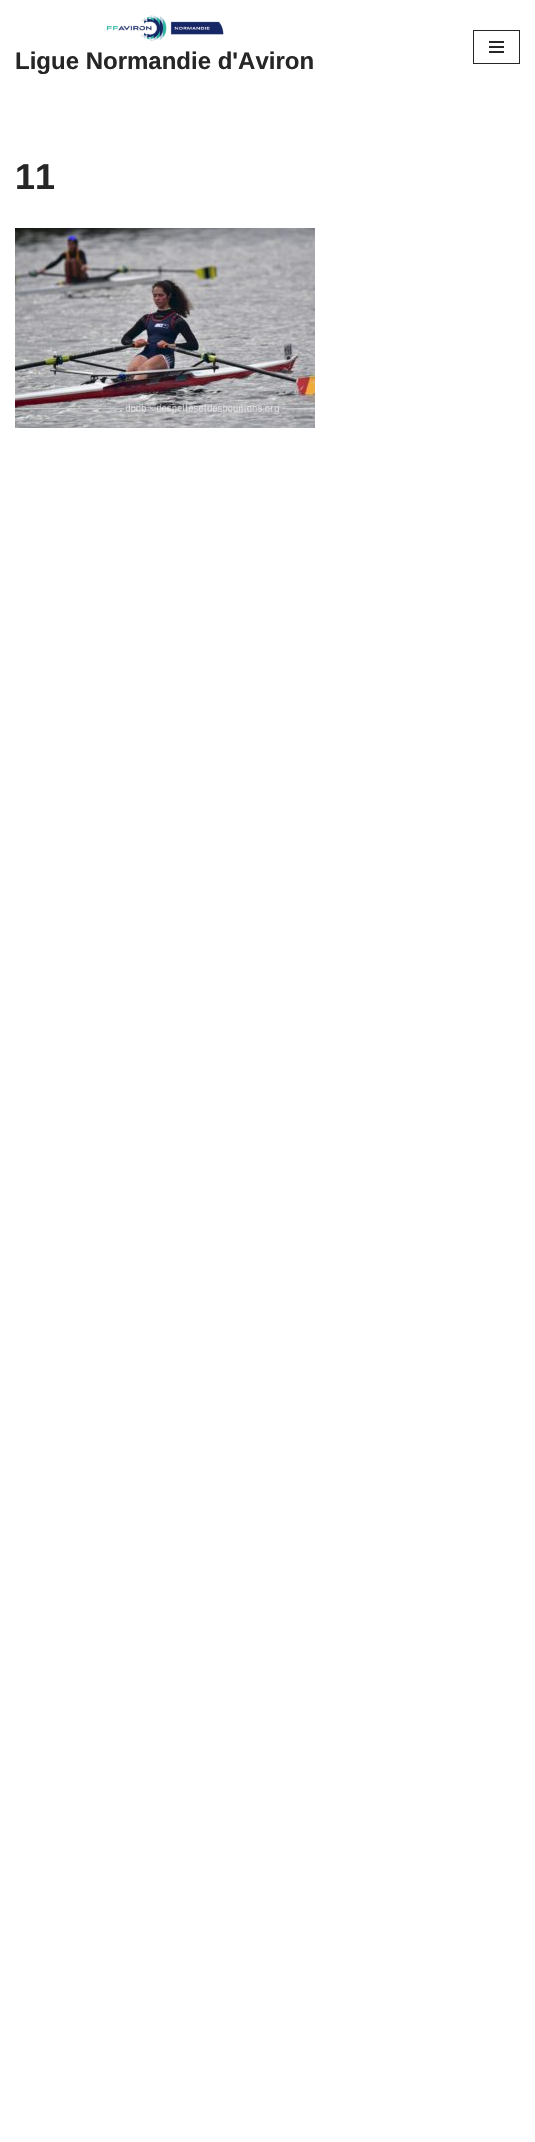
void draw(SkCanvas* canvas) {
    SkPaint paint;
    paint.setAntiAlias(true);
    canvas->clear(0xFFFFFFFF);
    canvas->drawImageRect(SkImages::DeferredFromEncodedData(SkData::MakeFromFileName("img1.png")), SkRect::MakeXYWH(106, 15, 118, 26), SkSamplingOptions());
    SkFont font1(fontMgr->matchFamilyStyle("Liberation Sans", SkFontStyle::Bold()), 24);
    font1.setSubpixel(true);
    paint.setColor(0xFF272626);
    canvas->drawString("Ligue Normandie d'Aviron", 15, 69, font1, paint);
    paint.setStyle(SkPaint::kStroke_Style);
    paint.setStrokeWidth(1);
    canvas->drawRect(SkRect::MakeXYWH(473.5f, 30.5f, 46, 33), paint);
    paint.setStyle(SkPaint::kFill_Style);
    canvas->drawRect(SkRect::MakeXYWH(489, 41, 15, 2), paint);
    canvas->drawRect(SkRect::MakeXYWH(489, 46, 15, 2), paint);
    canvas->drawRect(SkRect::MakeXYWH(489, 51, 15, 2), paint);
    SkFont font2(fontMgr->matchFamilyStyle("Liberation Sans", SkFontStyle::Bold()), 36);
    font2.setSubpixel(true);
    canvas->drawString("11", 15, 189, font2, paint);
    canvas->drawImageRect(SkImages::DeferredFromEncodedData(SkData::MakeFromFileName("img2.png")), SkRect::MakeXYWH(15, 228, 300, 200), SkSamplingOptions());
}
